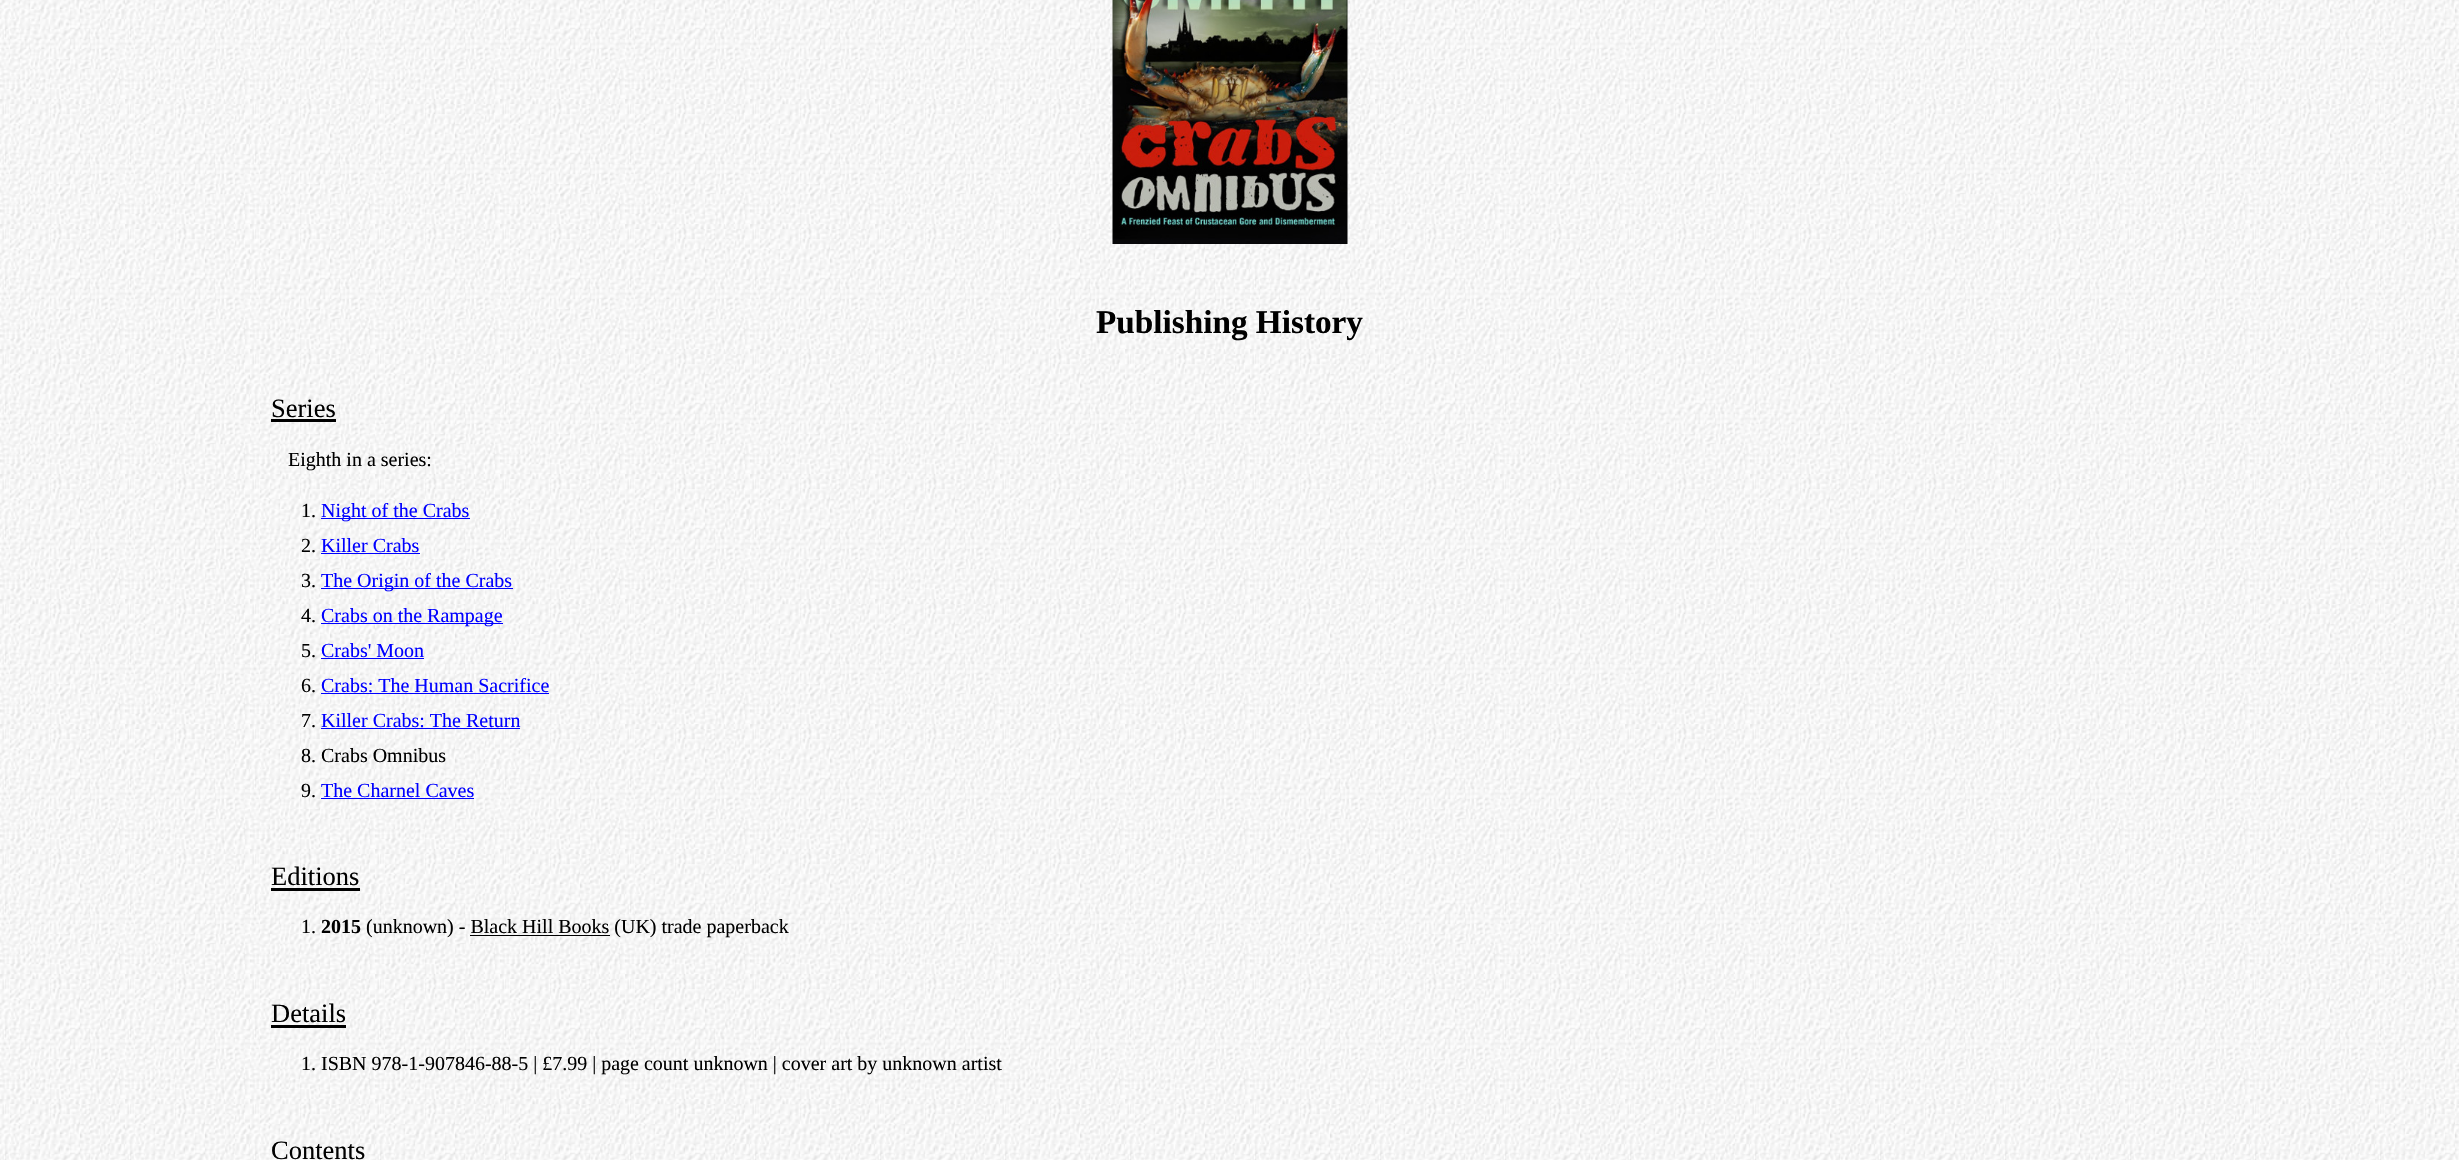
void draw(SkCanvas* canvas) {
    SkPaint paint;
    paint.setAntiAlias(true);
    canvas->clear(0xFFFFFFFF);
    canvas->drawImageRect(SkImages::DeferredFromEncodedData(SkData::MakeFromFileName("img1.png")), SkRect::MakeXYWH(0, 0, 2459, 1160), SkSamplingOptions());
    canvas->drawImageRect(SkImages::DeferredFromEncodedData(SkData::MakeFromFileName("img2.png")), SkRect::MakeXYWH(1112, 0, 236, 244), SkSamplingOptions());
    SkFont font1(fontMgr->matchFamilyStyle("Liberation Serif", SkFontStyle::Bold()), 33.25f);
    font1.setSubpixel(true);
    paint.setColor(0xFF000000);
    canvas->drawString("Publishing History", 1096, 333, font1, paint);
    SkFont font2(fontMgr->matchFamilyStyle("Liberation Serif", SkFontStyle::Normal()), 26.5f);
    font2.setSubpixel(true);
    canvas->drawString("Series", 271, 417, font2, paint);
    canvas->drawRect(SkRect::MakeXYWH(271, 419, 65, 3), paint);
    SkFont font3(fontMgr->matchFamilyStyle("Liberation Serif", SkFontStyle::Normal()), 20);
    font3.setSubpixel(true);
    canvas->drawString("Eighth in a series:", 288, 466, font3, paint);
    canvas->drawString("1.", 301, 517, font3, paint);
    paint.setColor(0xFF0000FF);
    canvas->drawRect(SkRect::MakeXYWH(321, 518, 149, 1), paint);
    canvas->drawString("Night of the Crabs", 321, 517, font3, paint);
    paint.setColor(0xFF000000);
    canvas->drawString("2.", 301, 552, font3, paint);
    paint.setColor(0xFF0000FF);
    canvas->drawString("Killer Crabs", 321, 552, font3, paint);
    canvas->drawRect(SkRect::MakeXYWH(321, 553, 99, 1), paint);
    paint.setColor(0xFF000000);
    canvas->drawString("3.", 301, 587, font3, paint);
    paint.setColor(0xFF0000FF);
    canvas->drawRect(SkRect::MakeXYWH(321, 588, 192, 1), paint);
    canvas->drawString("The Origin of the Crabs", 321, 587, font3, paint);
    paint.setColor(0xFF000000);
    canvas->drawString("4.", 301, 622, font3, paint);
    paint.setColor(0xFF0000FF);
    canvas->drawRect(SkRect::MakeXYWH(321, 623, 182, 1), paint);
    canvas->drawString("Crabs on the Rampage", 321, 622, font3, paint);
    paint.setColor(0xFF000000);
    canvas->drawString("5.", 301, 657, font3, paint);
    paint.setColor(0xFF0000FF);
    canvas->drawString("Crabs' Moon", 321, 657, font3, paint);
    canvas->drawRect(SkRect::MakeXYWH(321, 658, 103, 1), paint);
    paint.setColor(0xFF000000);
    canvas->drawString("6.", 301, 692, font3, paint);
    paint.setColor(0xFF0000FF);
    canvas->drawString("Crabs: The Human Sacrifice", 321, 692, font3, paint);
    canvas->drawRect(SkRect::MakeXYWH(321, 693, 228, 1), paint);
    paint.setColor(0xFF000000);
    canvas->drawString("7.", 301, 727, font3, paint);
    paint.setColor(0xFF0000FF);
    canvas->drawString("Killer Crabs: The Return", 321, 727, font3, paint);
    canvas->drawRect(SkRect::MakeXYWH(321, 728, 199, 1), paint);
    paint.setColor(0xFF000000);
    canvas->drawString("8. Crabs Omnibus", 301, 762, font3, paint);
    canvas->drawString("9.", 301, 797, font3, paint);
    paint.setColor(0xFF0000FF);
    canvas->drawString("The Charnel Caves", 321, 797, font3, paint);
    canvas->drawRect(SkRect::MakeXYWH(321, 798, 153, 1), paint);
    paint.setColor(0xFF000000);
    canvas->drawString("Editions", 271, 885, font2, paint);
    canvas->drawRect(SkRect::MakeXYWH(271, 888, 89, 3), paint);
    canvas->drawString("1.", 301, 933, font3, paint);
    SkFont font4(fontMgr->matchFamilyStyle("Liberation Serif", SkFontStyle::Bold()), 20);
    font4.setSubpixel(true);
    canvas->drawString("2015", 321, 933, font4, paint);
    canvas->drawString("(unknown) - Black Hill Books (UK) trade paperback", 366, 933, font3, paint);
    canvas->drawRect(SkRect::MakeXYWH(470, 935, 140, 1), paint);
    canvas->drawString("Details", 271, 1022, font2, paint);
    canvas->drawRect(SkRect::MakeXYWH(271, 1025, 75, 3), paint);
    canvas->drawString("1. ISBN 978-1-907846-88-5 | £7.99 | page count unknown | cover art by unknown artist", 301, 1070, font3, paint);
    canvas->drawString("Contents", 271, 1159, font2, paint);
}
